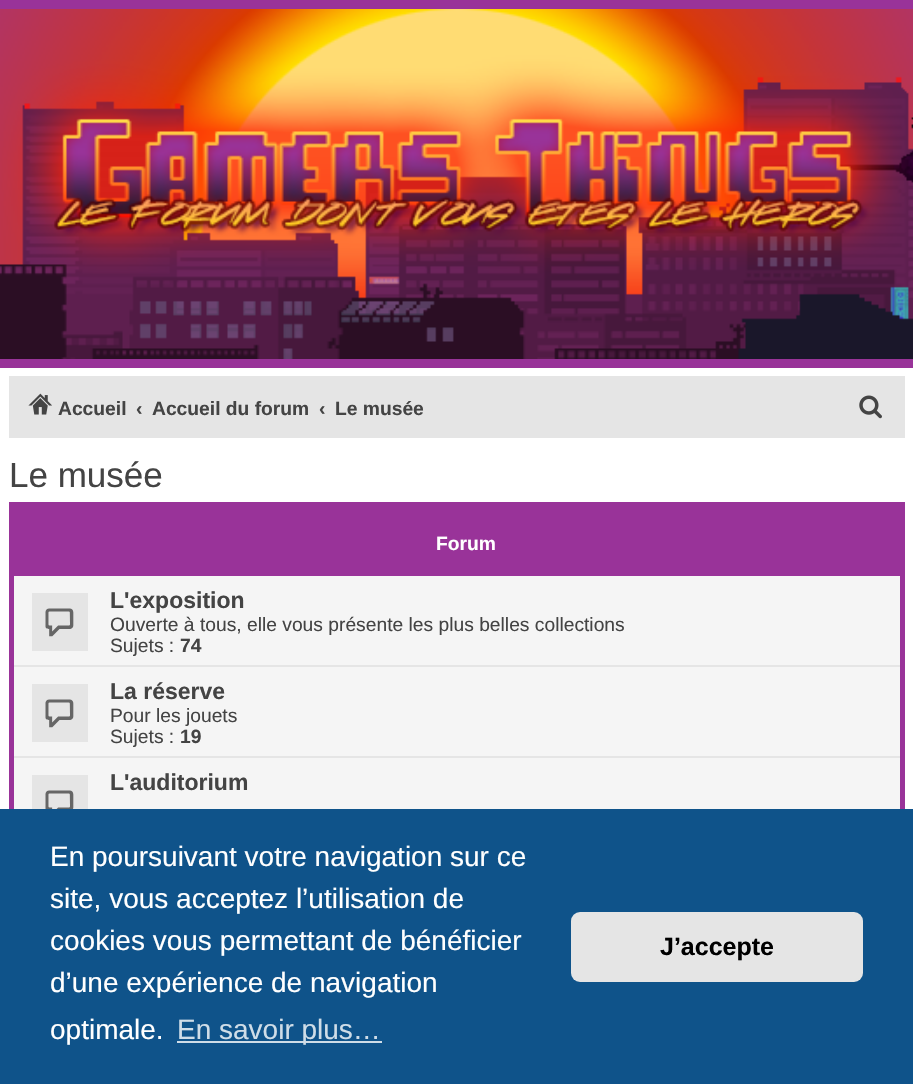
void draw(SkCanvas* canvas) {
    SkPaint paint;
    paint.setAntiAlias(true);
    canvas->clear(0xFF993399);
    canvas->drawImageRect(SkImages::DeferredFromEncodedData(SkData::MakeFromFileName("img1.png")), SkRect::MakeXYWH(0, 9, 913, 350), SkSamplingOptions());
    paint.setColor(0xFFFFFFFF);
    canvas->drawRect(SkRect::MakeXYWH(0, 368, 913, 441), paint);
    paint.setColor(0xFFE5E5E5);
    canvas->drawRect(SkRect::MakeXYWH(9, 376, 896, 62), paint);
    canvas->drawImageRect(SkImages::DeferredFromEncodedData(SkData::MakeFromFileName("img2.png")), SkRect::MakeXYWH(28, 393, 24, 22), SkSamplingOptions());
    SkFont font1(fontMgr->matchFamilyStyle("Liberation Sans", SkFontStyle::Bold()), 19.25f);
    font1.setSubpixel(true);
    paint.setColor(0xFF444444);
    canvas->drawString("Accueil", 58, 415, font1, paint);
    canvas->drawString("‹", 136, 415, font1, paint);
    canvas->drawString("Accueil du forum", 152, 415, font1, paint);
    canvas->drawString("‹", 319, 415, font1, paint);
    canvas->drawString("Le musée", 335, 415, font1, paint);
    canvas->drawImageRect(SkImages::DeferredFromEncodedData(SkData::MakeFromFileName("img3.png")), SkRect::MakeXYWH(859, 395, 23, 24), SkSamplingOptions());
    SkFont font2(fontMgr->matchFamilyStyle("Liberation Sans", SkFontStyle::Normal()), 35);
    font2.setSubpixel(true);
    canvas->drawString("Le musée", 9, 487, font2, paint);
    paint.setColor(0xFF993399);
    canvas->drawRect(SkRect::MakeXYWH(9, 502, 896, 307), paint);
    paint.setColor(0xFFFFFFFF);
    canvas->drawString("Forum", 436, 550, font1, paint);
    paint.setColor(0xFFF5F5F5);
    canvas->drawRect(SkRect::MakeXYWH(14, 576, 886, 233), paint);
    paint.setColor(0xFFE5E5E5);
    canvas->drawRect(SkRect::MakeXYWH(14, 665, 886, 2), paint);
    canvas->drawRect(SkRect::MakeXYWH(32, 593, 56, 58), paint);
    canvas->drawImageRect(SkImages::DeferredFromEncodedData(SkData::MakeFromFileName("img4.png")), SkRect::MakeXYWH(45, 608, 29, 29), SkSamplingOptions());
    SkFont font3(fontMgr->matchFamilyStyle("Liberation Sans", SkFontStyle::Bold()), 23);
    font3.setSubpixel(true);
    paint.setColor(0xFF444444);
    canvas->drawString("L'exposition", 110, 608, font3, paint);
    SkFont font4(fontMgr->matchFamilyStyle("Liberation Sans", SkFontStyle::Normal()), 19.25f);
    font4.setSubpixel(true);
    canvas->drawString("Ouverte à tous, elle vous présente les plus belles collections", 110, 631, font4, paint);
    canvas->drawString("Sujets :", 110, 652, font4, paint);
    canvas->drawString("74", 180, 652, font1, paint);
    paint.setColor(0xFFE5E5E5);
    canvas->drawRect(SkRect::MakeXYWH(14, 756, 886, 2), paint);
    canvas->drawRect(SkRect::MakeXYWH(32, 684, 56, 58), paint);
    canvas->drawImageRect(SkImages::DeferredFromEncodedData(SkData::MakeFromFileName("img5.png")), SkRect::MakeXYWH(45, 699, 29, 29), SkSamplingOptions());
    paint.setColor(0xFF444444);
    canvas->drawString("La réserve", 110, 699, font3, paint);
    canvas->drawString("Pour les jouets", 110, 722, font4, paint);
    canvas->drawString("Sujets :", 110, 743, font4, paint);
    canvas->drawString("19", 180, 743, font1, paint);
    paint.setColor(0xFFE5E5E5);
    canvas->drawRect(SkRect::MakeXYWH(32, 775, 56, 34), paint);
    canvas->drawImageRect(SkImages::DeferredFromEncodedData(SkData::MakeFromFileName("img6.png")), SkRect::MakeXYWH(45, 790, 29, 19), SkSamplingOptions());
    paint.setColor(0xFF444444);
    canvas->drawString("L'auditorium", 110, 790, font3, paint);
    paint.setColor(0xFF0F538A);
    canvas->drawRect(SkRect::MakeXYWH(0, 809, 913, 275), paint);
    SkFont font5(fontMgr->matchFamilyStyle("Liberation Sans", SkFontStyle::Normal()), 28);
    font5.setSubpixel(true);
    paint.setColor(0xFFFFFFFF);
    canvas->drawString("En poursuivant votre navigation sur ce", 50, 866, font5, paint);
    canvas->drawString("site, vous acceptez l’utilisation de", 50, 908, font5, paint);
    canvas->drawString("cookies vous permettant de bénéficier", 50, 950, font5, paint);
    canvas->drawString("d’une expérience de navigation", 50, 992, font5, paint);
    canvas->drawString("optimale.", 50, 1039, font5, paint);
    paint.setColor(0xFFCFDDE8);
    canvas->drawRect(SkRect::MakeXYWH(177, 1041, 205, 2), paint);
    canvas->drawString("En savoir plus…", 177, 1039, font5, paint);
    paint.setColor(0xFFE5E5E5);
    canvas->drawRoundRect(SkRect::MakeXYWH(571, 912, 292, 70), 9, 9, paint);
    SkFont font6(fontMgr->matchFamilyStyle("Liberation Sans", SkFontStyle::Bold()), 25);
    font6.setSubpixel(true);
    paint.setColor(0xFF000000);
    canvas->drawString("J’accepte", 660, 955, font6, paint);
}
